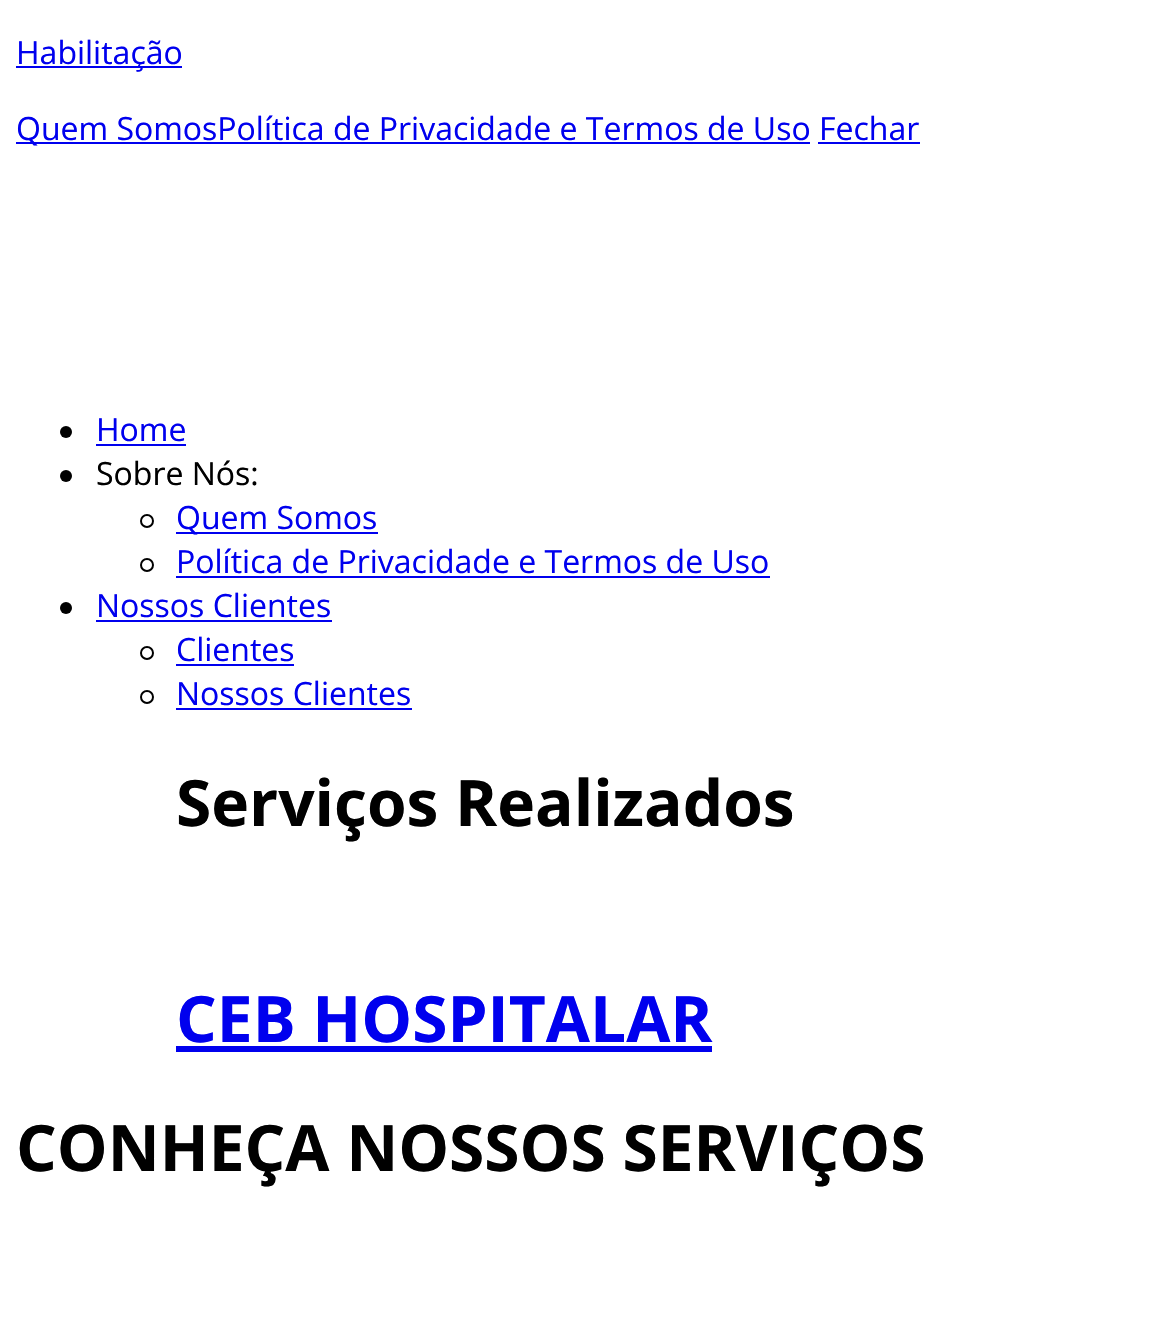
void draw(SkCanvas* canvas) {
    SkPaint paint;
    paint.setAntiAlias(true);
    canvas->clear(0xFFFFFFFF);
    paint.setColor(0xFF0000EE);
    canvas->drawRect(SkRect::MakeXYWH(16, 66, 166, 2), paint);
    SkFont font1(fontMgr->matchFamilyStyle("Open Sans", SkFontStyle::Normal()), 32);
    font1.setSubpixel(true);
    canvas->drawString("Habilitação", 16, 64, font1, paint);
    canvas->drawRect(SkRect::MakeXYWH(16, 142, 794, 2), paint);
    canvas->drawString("Quem SomosPolítica de Privacidade e Termos de Uso Fechar", 16, 140, font1, paint);
    canvas->drawRect(SkRect::MakeXYWH(818, 142, 102, 2), paint);
    paint.setColor(0xFF000000);
    canvas->drawCircle(66, 432, 6, paint);
    paint.setColor(0xFF0000EE);
    canvas->drawString("Home", 96, 441, font1, paint);
    canvas->drawRect(SkRect::MakeXYWH(96, 444, 90, 2), paint);
    paint.setColor(0xFF000000);
    canvas->drawCircle(66, 476, 6, paint);
    canvas->drawString("Sobre Nós:", 96, 485, font1, paint);
    paint.setStyle(SkPaint::kStroke_Style);
    paint.setStrokeWidth(2);
    canvas->drawCircle(147, 521, 6, paint);
    paint.setStyle(SkPaint::kFill_Style);
    paint.setColor(0xFF0000EE);
    canvas->drawRect(SkRect::MakeXYWH(176, 532, 202, 2), paint);
    canvas->drawString("Quem Somos", 176, 529, font1, paint);
    paint.setStyle(SkPaint::kStroke_Style);
    paint.setColor(0xFF000000);
    canvas->drawCircle(147, 565, 6, paint);
    paint.setStyle(SkPaint::kFill_Style);
    paint.setColor(0xFF0000EE);
    canvas->drawString("Política de Privacidade e Termos de Uso", 176, 573, font1, paint);
    canvas->drawRect(SkRect::MakeXYWH(176, 576, 594, 2), paint);
    paint.setColor(0xFF000000);
    canvas->drawCircle(66, 608, 6, paint);
    paint.setColor(0xFF0000EE);
    canvas->drawString("Nossos Clientes", 96, 617, font1, paint);
    canvas->drawRect(SkRect::MakeXYWH(96, 620, 236, 2), paint);
    paint.setStyle(SkPaint::kStroke_Style);
    paint.setColor(0xFF000000);
    canvas->drawCircle(147, 653, 6, paint);
    paint.setStyle(SkPaint::kFill_Style);
    paint.setColor(0xFF0000EE);
    canvas->drawString("Clientes", 176, 661, font1, paint);
    canvas->drawRect(SkRect::MakeXYWH(176, 664, 118, 2), paint);
    paint.setStyle(SkPaint::kStroke_Style);
    paint.setColor(0xFF000000);
    canvas->drawCircle(147, 697, 6, paint);
    paint.setStyle(SkPaint::kFill_Style);
    paint.setColor(0xFF0000EE);
    canvas->drawString("Nossos Clientes", 176, 705, font1, paint);
    canvas->drawRect(SkRect::MakeXYWH(176, 708, 236, 2), paint);
    SkFont font2(fontMgr->matchFamilyStyle("Open Sans", SkFontStyle::Bold()), 64);
    font2.setSubpixel(true);
    paint.setColor(0xFF000000);
    canvas->drawString("Serviços Realizados", 176, 826, font2, paint);
    paint.setColor(0xFF0000EE);
    canvas->drawString("CEB HOSPITALAR", 176, 1042, font2, paint);
    canvas->drawRect(SkRect::MakeXYWH(176, 1046, 536, 6), paint);
    paint.setColor(0xFF000000);
    canvas->drawString("CONHEÇA NOSSOS SERVIÇOS", 16, 1171, font2, paint);
}
